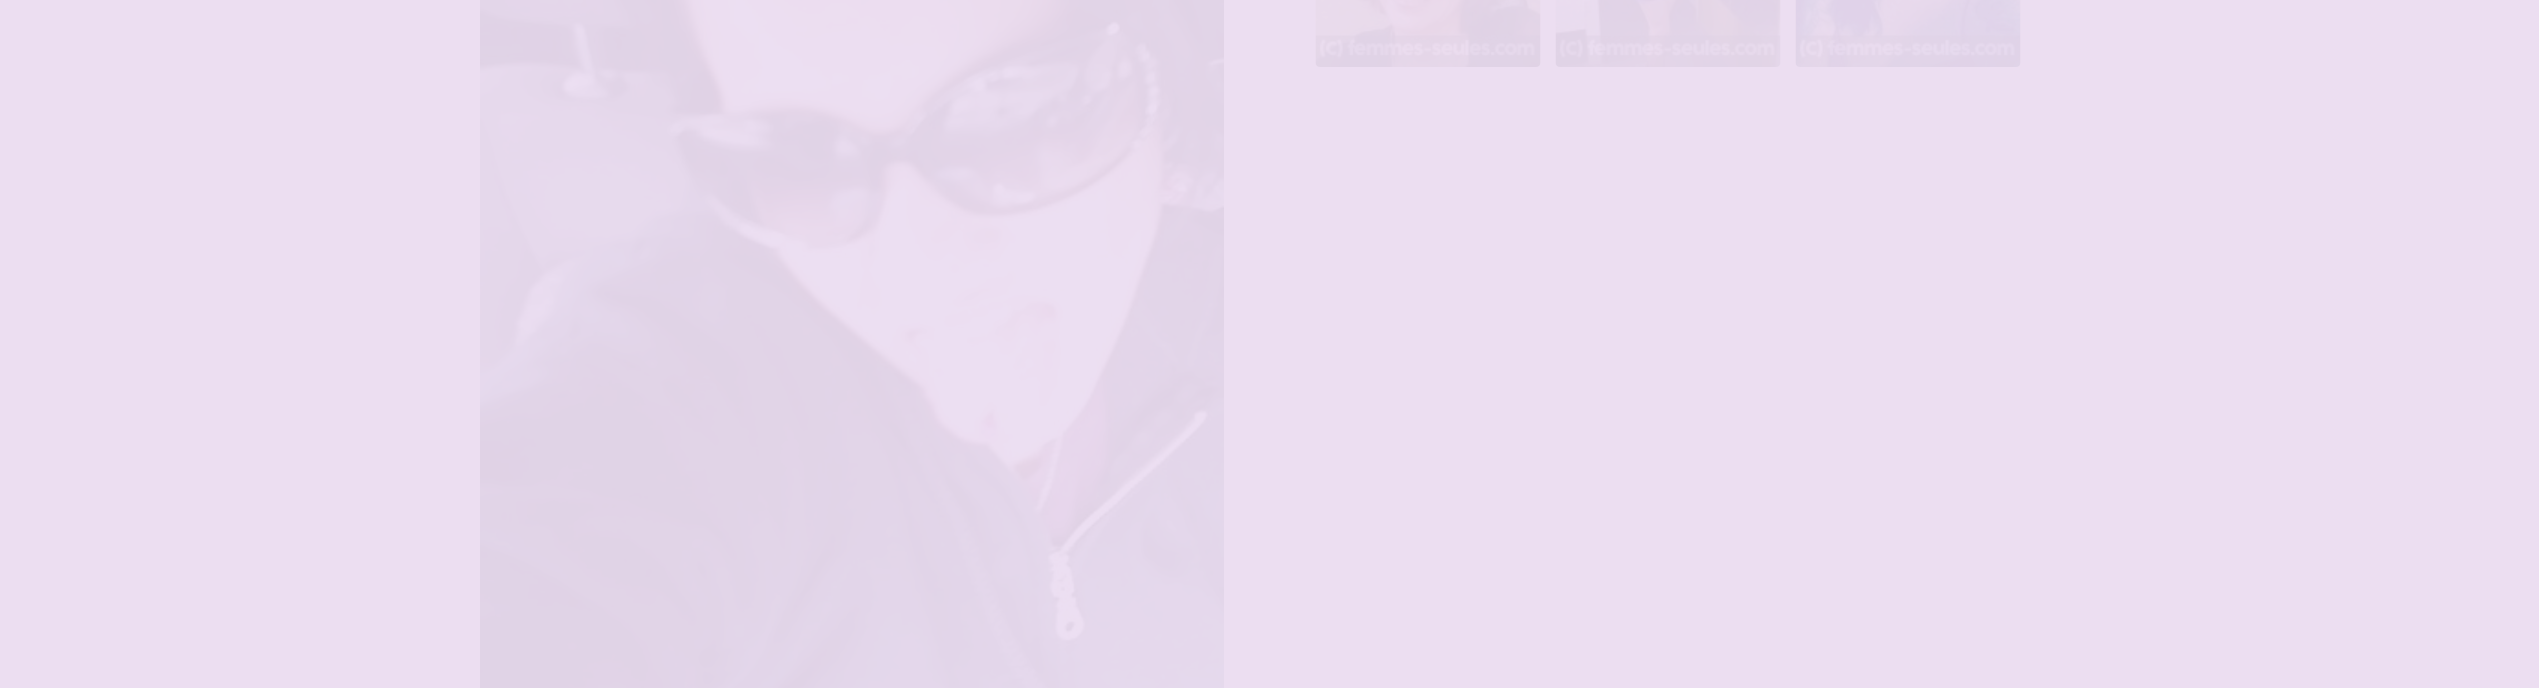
void draw(SkCanvas* canvas) {
    SkPaint paint;
    paint.setAntiAlias(true);
    canvas->clear(0xFFECDEF1);
    canvas->drawImageRect(SkImages::DeferredFromEncodedData(SkData::MakeFromFileName("img1.png")), SkRect::MakeXYWH(480, 0, 744, 688), SkSamplingOptions());
    canvas->drawImageRect(SkImages::DeferredFromEncodedData(SkData::MakeFromFileName("img2.png")), SkRect::MakeXYWH(1315, 0, 226, 67), SkSamplingOptions());
    canvas->drawImageRect(SkImages::DeferredFromEncodedData(SkData::MakeFromFileName("img3.png")), SkRect::MakeXYWH(1555, 0, 226, 67), SkSamplingOptions());
    canvas->drawImageRect(SkImages::DeferredFromEncodedData(SkData::MakeFromFileName("img4.png")), SkRect::MakeXYWH(1795, 0, 226, 67), SkSamplingOptions());
}
